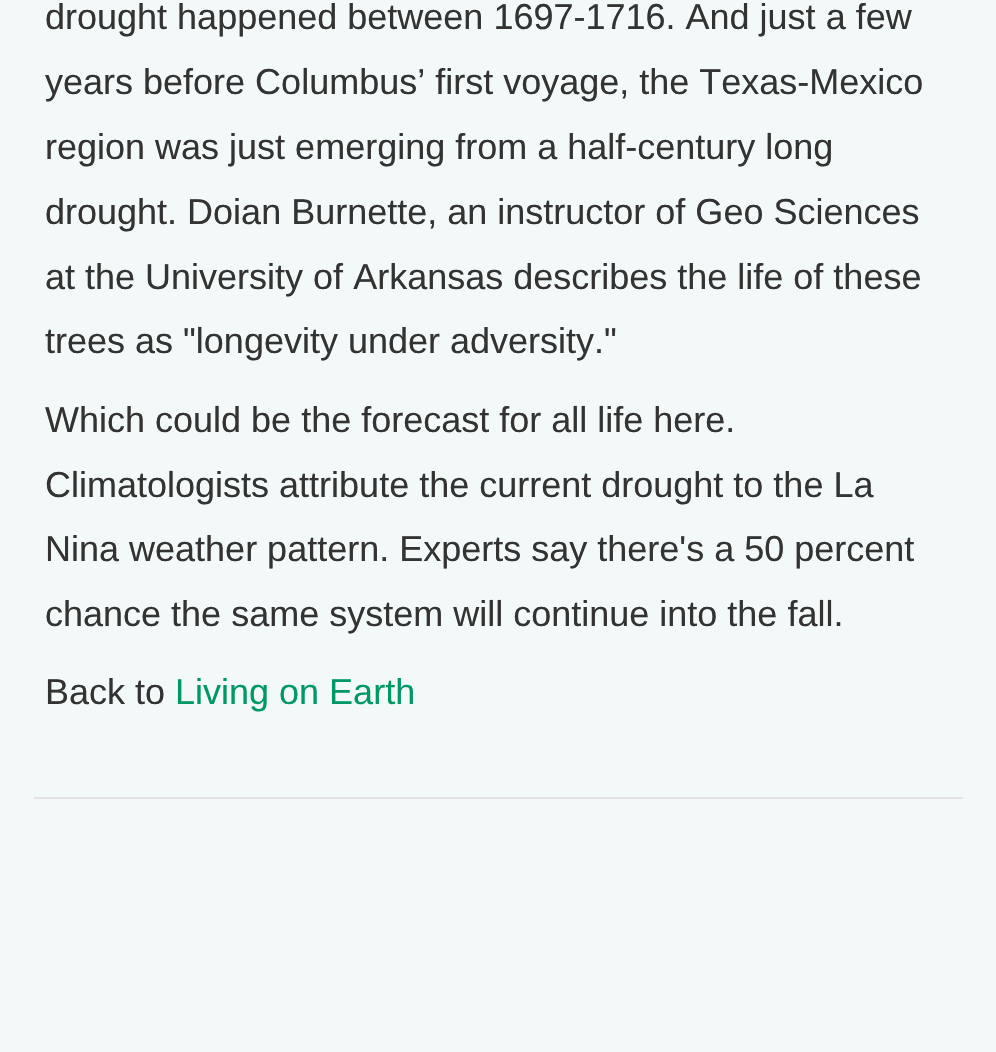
void draw(SkCanvas* canvas) {
    SkPaint paint;
    paint.setAntiAlias(true);
    canvas->clear(0xFFF2F9F8);
    SkFont font1(fontMgr->matchFamilyStyle("Liberation Sans", SkFontStyle::Normal()), 36);
    font1.setSubpixel(true);
    paint.setColor(0xFF333333);
    canvas->drawString("drought happened between 1697-1716. And just a few", 45, 29, font1, paint);
    canvas->drawString("years before Columbus’ first voyage, the Texas-Mexico", 45, 94, font1, paint);
    canvas->drawString("region was just emerging from a half-century long", 45, 159, font1, paint);
    canvas->drawString("drought. Doian Burnette, an instructor of Geo Sciences", 45, 224, font1, paint);
    canvas->drawString("at the University of Arkansas describes the life of these", 45, 289, font1, paint);
    canvas->drawString("trees as \"longevity under adversity.\"", 45, 353, font1, paint);
    canvas->drawString("Which could be the forecast for all life here.", 45, 432, font1, paint);
    canvas->drawString("Climatologists attribute the current drought to the La", 45, 497, font1, paint);
    canvas->drawString("Nina weather pattern. Experts say there's a 50 percent", 45, 561, font1, paint);
    canvas->drawString("chance the same system will continue into the fall.", 45, 626, font1, paint);
    canvas->drawString("Back to", 45, 704, font1, paint);
    paint.setColor(0xFF009966);
    canvas->drawString("Living on Earth", 175, 704, font1, paint);
    paint.setColor(0xFFE2E2E2);
    canvas->drawRect(SkRect::MakeXYWH(34, 797, 929, 2), paint);
}
